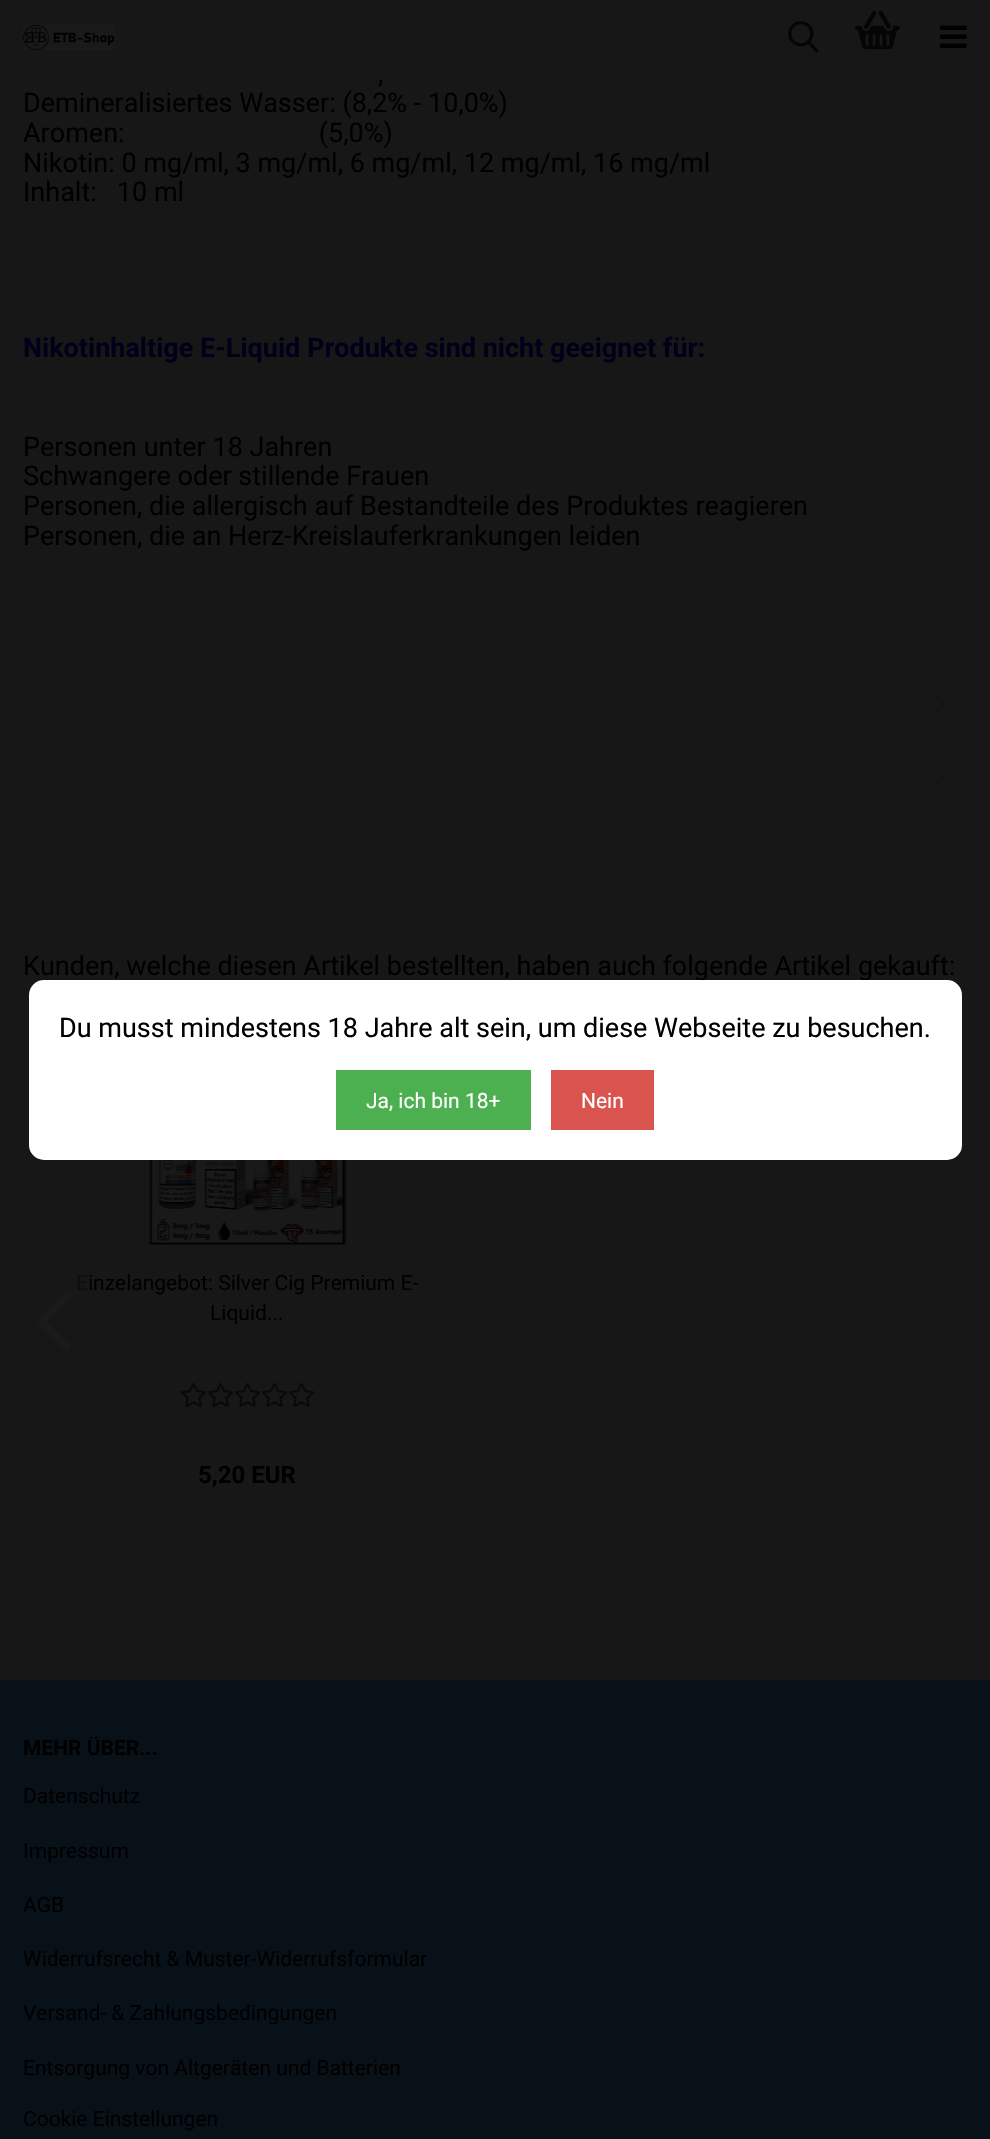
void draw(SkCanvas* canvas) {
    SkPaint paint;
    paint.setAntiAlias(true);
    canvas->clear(0xFF171717);
    canvas->drawImageRect(SkImages::DeferredFromEncodedData(SkData::MakeFromFileName("img1.png")), SkRect::MakeXYWH(23, 25, 92, 25), SkSamplingOptions());
    canvas->drawImageRect(SkImages::DeferredFromEncodedData(SkData::MakeFromFileName("img2.png")), SkRect::MakeXYWH(788, 21, 31, 32), SkSamplingOptions());
    canvas->drawImageRect(SkImages::DeferredFromEncodedData(SkData::MakeFromFileName("img3.png")), SkRect::MakeXYWH(855, 10, 45, 40), SkSamplingOptions());
    canvas->drawImageRect(SkImages::DeferredFromEncodedData(SkData::MakeFromFileName("img4.png")), SkRect::MakeXYWH(939, 25, 28, 23), SkSamplingOptions());
    SkFont font1(fontMgr->matchFamilyStyle("Roboto", SkFontStyle::Normal()), 27);
    font1.setSubpixel(true);
    paint.setColor(0xFF000000);
    canvas->drawString(",", 378, 83, font1, paint);
    canvas->drawString("Demineralisiertes Wasser: (8,2% - 10,0%)", 23, 112, font1, paint);
    canvas->drawString("Aromen:                             (5,0%)", 23, 142, font1, paint);
    canvas->drawString("Nikotin: 0 mg/ml, 3 mg/ml, 6 mg/ml, 12 mg/ml, 16 mg/ml", 23, 172, font1, paint);
    canvas->drawString("Inhalt:   10 ml", 23, 201, font1, paint);
    SkFont font2(fontMgr->matchFamilyStyle("Roboto", SkFontStyle::Bold()), 27);
    font2.setSubpixel(true);
    paint.setColor(0xFF000019);
    canvas->drawString("Nikotinhaltige E-Liquid Produkte sind nicht geeignet für:", 23, 357, font2, paint);
    paint.setColor(0xFF000000);
    canvas->drawString("Personen unter 18 Jahren", 23, 456, font1, paint);
    canvas->drawString("Schwangere oder stillende Frauen", 23, 485, font1, paint);
    canvas->drawString("Personen, die allergisch auf Bestandteile des Produktes reagieren", 23, 515, font1, paint);
    canvas->drawString("Personen, die an Herz-Kreislauferkrankungen leiden", 23, 545, font1, paint);
    canvas->drawImageRect(SkImages::DeferredFromEncodedData(SkData::MakeFromFileName("img5.png")), SkRect::MakeXYWH(933, 694, 12, 19), SkSamplingOptions());
    canvas->drawImageRect(SkImages::DeferredFromEncodedData(SkData::MakeFromFileName("img5.png")), SkRect::MakeXYWH(933, 769, 12, 19), SkSamplingOptions());
    canvas->drawString("Kunden, welche diesen Artikel bestellten, haben auch folgende Artikel gekauft:", 23, 975, font1, paint);
    SkFont font3(fontMgr->matchFamilyStyle("Roboto", SkFontStyle::Normal()), 21);
    font3.setSubpixel(true);
    canvas->drawString("Einzelangebot: Silver Cig Premium E-", 76, 1290, font3, paint);
    paint.setColor(0x99161616);
    canvas->drawRect(SkRect::MakeXYWH(77, 1275, 13, 15), paint);
    canvas->drawImageRect(SkImages::DeferredFromEncodedData(SkData::MakeFromFileName("img6.png")), SkRect::MakeXYWH(37, 1292, 33, 59), SkSamplingOptions());
    canvas->drawImageRect(SkImages::DeferredFromEncodedData(SkData::MakeFromFileName("img7.png")), SkRect::MakeXYWH(149, 1160, 197, 85), SkSamplingOptions());
    paint.setColor(0xFF000000);
    canvas->drawString("Liquid...", 210, 1320, font3, paint);
    canvas->drawImageRect(SkImages::DeferredFromEncodedData(SkData::MakeFromFileName("img8.png")), SkRect::MakeXYWH(181, 1383, 25, 24), SkSamplingOptions());
    canvas->drawImageRect(SkImages::DeferredFromEncodedData(SkData::MakeFromFileName("img8.png")), SkRect::MakeXYWH(208, 1383, 25, 24), SkSamplingOptions());
    canvas->drawImageRect(SkImages::DeferredFromEncodedData(SkData::MakeFromFileName("img8.png")), SkRect::MakeXYWH(235, 1383, 25, 24), SkSamplingOptions());
    canvas->drawImageRect(SkImages::DeferredFromEncodedData(SkData::MakeFromFileName("img8.png")), SkRect::MakeXYWH(262, 1383, 25, 24), SkSamplingOptions());
    canvas->drawImageRect(SkImages::DeferredFromEncodedData(SkData::MakeFromFileName("img8.png")), SkRect::MakeXYWH(289, 1383, 25, 24), SkSamplingOptions());
    SkFont font4(fontMgr->matchFamilyStyle("Roboto", SkFontStyle::Bold()), 24);
    font4.setSubpixel(true);
    canvas->drawString("5,20 EUR", 198, 1483, font4, paint);
    paint.setColor(0xFF081018);
    canvas->drawRect(SkRect::MakeXYWH(0, 1680, 990, 459), paint);
    SkFont font5(fontMgr->matchFamilyStyle("Roboto", SkFontStyle::Bold()), 21);
    font5.setSubpixel(true);
    paint.setColor(0xFF000000);
    canvas->drawString("MEHR ÜBER...", 23, 1755, font5, paint);
    canvas->drawString("Datenschutz", 23, 1803, font3, paint);
    canvas->drawString("Impressum", 23, 1858, font3, paint);
    canvas->drawString("AGB", 23, 1912, font3, paint);
    canvas->drawString("Widerrufsrecht & Muster-Widerrufsformular", 23, 1966, font3, paint);
    canvas->drawString("Versand- & Zahlungsbedingungen", 23, 2020, font3, paint);
    canvas->drawString("Entsorgung von Altgeräten und Batterien", 23, 2075, font3, paint);
    canvas->drawString("Cookie Einstellungen", 23, 2126, font3, paint);
    paint.setColor(0xFFFFFFFF);
    canvas->drawRoundRect(SkRect::MakeXYWH(29, 980, 933, 180), 15, 15, paint);
    paint.setColor(0xFF000000);
    canvas->drawString("Du musst mindestens 18 Jahre alt sein, um diese Webseite zu besuchen.", 59, 1037, font1, paint);
    paint.setColor(0xFF4CAF50);
    canvas->drawRect(SkRect::MakeXYWH(336, 1070, 195, 60), paint);
    paint.setColor(0xFFFFFFFF);
    canvas->drawString("Ja, ich bin 18+", 366, 1108, font3, paint);
    paint.setColor(0xFFD9534F);
    canvas->drawRect(SkRect::MakeXYWH(551, 1070, 103, 60), paint);
    paint.setColor(0xFFFFFFFF);
    canvas->drawString("Nein", 581, 1108, font3, paint);
}
